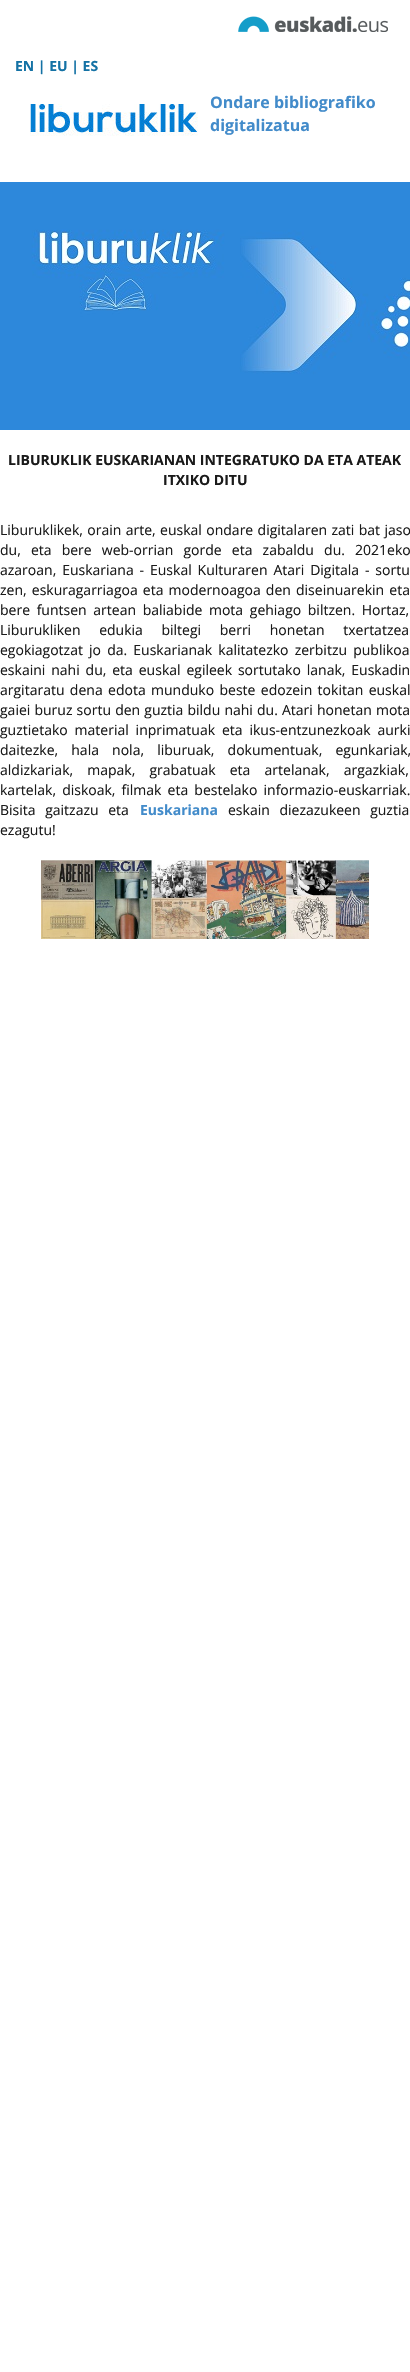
void draw(SkCanvas* canvas) {
    SkPaint paint;
    paint.setAntiAlias(true);
    auto spacedText = [&](const char* s, float x, float y, const SkFont& font, const SkPaint& ink, float letter, float word) {
        std::vector<SkGlyphID> glyphs(font.countText(s, strlen(s), SkTextEncoding::kUTF8));
        std::vector<float> xs(glyphs.size());
        font.textToGlyphs(s, strlen(s), SkTextEncoding::kUTF8, glyphs);
        font.getXPos(glyphs, xs, x);
        float extra = 0;
        for (size_t i = 0; i < glyphs.size(); i++) {
            xs[i] += extra;
            extra += letter + word * (glyphs[i] == font.unicharToGlyph(' '));
        }
        canvas->drawTextBlob(SkTextBlob::MakeFromPosHGlyphs(glyphs, xs, y, font), 0, 0, ink);
    };
    canvas->clear(0xFFFFFFFF);
    canvas->drawImageRect(SkImages::DeferredFromEncodedData(SkData::MakeFromFileName("img1.png")), SkRect::MakeXYWH(238, 16, 150, 16), SkSamplingOptions());
    SkFont font1(fontMgr->matchFamilyStyle("Open Sans", SkFontStyle::Bold()), 14);
    font1.setSubpixel(true);
    paint.setColor(0xFF1472A5);
    canvas->drawString("EN | EU | ES", 15, 71, font1, paint);
    canvas->drawImageRect(SkImages::DeferredFromEncodedData(SkData::MakeFromFileName("img2.png")), SkRect::MakeXYWH(30, 104, 168, 32), SkSamplingOptions());
    SkFont font2(fontMgr->matchFamilyStyle("Open Sans", SkFontStyle::Bold()), 16);
    font2.setSubpixel(true);
    paint.setColor(0xFF428BCA);
    canvas->drawString("Ondare bibliografiko", 210, 108, font2, paint);
    canvas->drawString("digitalizatua", 210, 131, font2, paint);
    canvas->drawImageRect(SkImages::DeferredFromEncodedData(SkData::MakeFromFileName("img3.png")), SkRect::MakeXYWH(0, 182, 410, 248), SkSamplingOptions());
    paint.setColor(0xFF1A1A1A);
    canvas->drawString("LIBURUKLIK EUSKARIANAN INTEGRATUKO DA ETA ATEAK", 8, 465, font1, paint);
    canvas->drawString("ITXIKO DITU", 163, 485, font1, paint);
    SkFont font3(fontMgr->matchFamilyStyle("Open Sans", SkFontStyle::Normal()), 14);
    font3.setSubpixel(true);
    spacedText("Liburuklikek, orain arte, euskal ondare digitalaren zati bat jaso", 0, 535, font3, paint, 0, 0.75f);
    spacedText("du, eta bere web-orrian gorde eta zabaldu du. 2021eko", 0, 555, font3, paint, 0, 6.5f);
    spacedText("azaroan, Euskariana - Euskal Kulturaren Atari Digitala - sortu", 0, 575, font3, paint, 0, 2.25f);
    spacedText("zen, eskuragarriagoa eta modernoagoa den diseinuarekin eta", 0, 595, font3, paint, 0, 1.5f);
    spacedText("bere funtsen artean baliabide mota gehiago biltzen. Hortaz,", 0, 615, font3, paint, 0, 3);
    spacedText("Liburukliken edukia biltegi berri honetan txertatzea", 0, 635, font3, paint, 0, 15);
    spacedText("egokiagotzat jo da. Euskarianak kalitatezko zerbitzu publikoa", 0, 655, font3, paint, 0, 2.5f);
    spacedText("eskaini nahi du, eta euskal egileek sortutako lanak, Euskadin", 0, 675, font3, paint, 0, 2.25f);
    spacedText("argitaratu dena edota munduko beste edozein tokitan euskal", 0, 695, font3, paint, 0, 1.75f);
    spacedText("gaiei buruz sortu den guztia bildu nahi du. Atari honetan mota", 0, 715, font3, paint, 0, 0.5f);
    spacedText("guztietako material inprimatuak eta ikus-entzunezkoak aurki", 0, 735, font3, paint, 0, 3.25f);
    spacedText("daitezke, hala nola, liburuak, dokumentuak, egunkariak,", 0, 755, font3, paint, 0, 9.5f);
    spacedText("aldizkariak, mapak, grabatuak eta artelanak, argazkiak,", 0, 775, font3, paint, 0, 10.5f);
    spacedText("kartelak, diskoak, filmak eta bestelako informazio-euskarriak.", 0, 795, font3, paint, 0, 2.5f);
    spacedText("Bisita gaitzazu eta", 0, 815, font3, paint, 0, 6);
    paint.setColor(0xFF428BCA);
    canvas->drawString("Euskariana", 140, 815, font1, paint);
    paint.setColor(0xFF1A1A1A);
    spacedText("eskain diezazukeen guztia", 228, 815, font3, paint, 0, 6);
    canvas->drawString("ezagutu!", 0, 835, font3, paint);
    canvas->drawImageRect(SkImages::DeferredFromEncodedData(SkData::MakeFromFileName("img4.png")), SkRect::MakeXYWH(41, 860, 328, 79), SkSamplingOptions());
}
